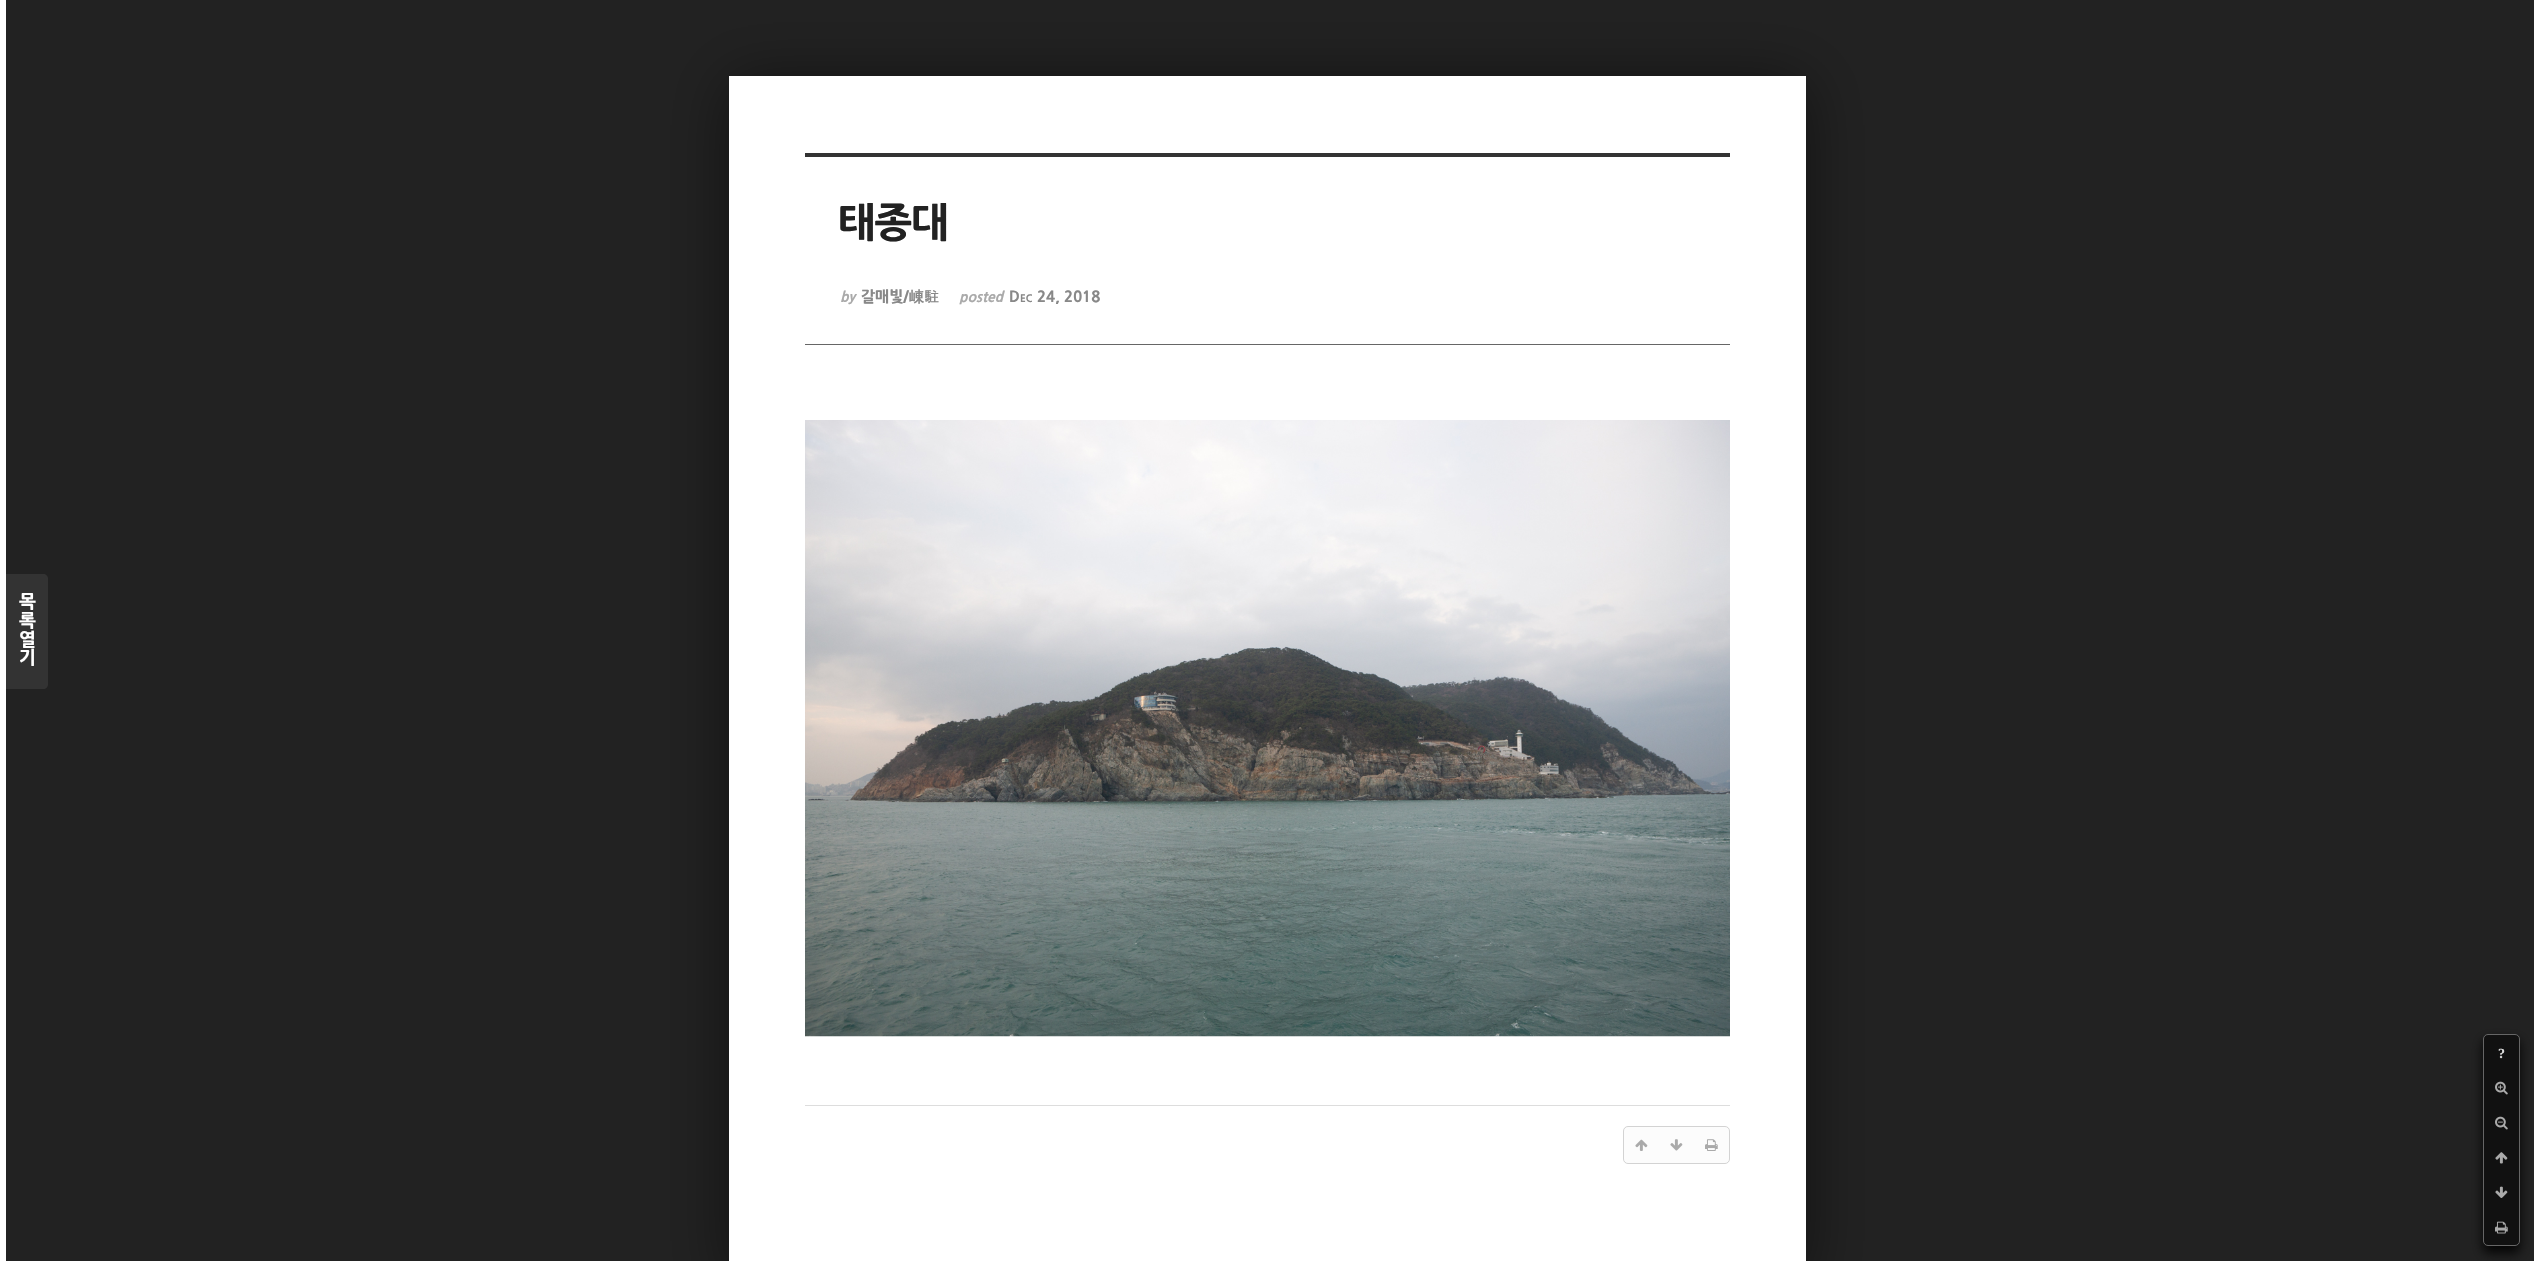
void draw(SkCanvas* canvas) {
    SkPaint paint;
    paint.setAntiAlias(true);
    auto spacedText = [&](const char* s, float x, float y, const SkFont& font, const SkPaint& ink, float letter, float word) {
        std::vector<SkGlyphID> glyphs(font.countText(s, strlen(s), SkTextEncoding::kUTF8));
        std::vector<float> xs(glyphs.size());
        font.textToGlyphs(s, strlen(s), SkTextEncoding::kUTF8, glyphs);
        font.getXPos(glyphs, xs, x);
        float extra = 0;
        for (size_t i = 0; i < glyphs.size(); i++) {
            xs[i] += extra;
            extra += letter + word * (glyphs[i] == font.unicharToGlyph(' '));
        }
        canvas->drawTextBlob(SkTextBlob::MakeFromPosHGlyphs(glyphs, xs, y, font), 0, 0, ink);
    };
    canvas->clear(0xFF222222);
    paint.setColor(0x80000000);
    paint.setMaskFilter(SkMaskFilter::MakeBlur(kNormal_SkBlurStyle, 30));
    canvas->drawRect(SkRect::MakeXYWH(729, 81, 1077, 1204), paint);
    paint.setMaskFilter(nullptr);
    paint.setColor(0xFFFFFFFF);
    canvas->drawRect(SkRect::MakeXYWH(729, 76, 1077, 1185), paint);
    canvas->drawRect(SkRect::MakeXYWH(0, 0, 6, 1261), paint);
    paint.setColor(0xFF333333);
    canvas->drawPath(SkPathBuilder().moveTo(6, 574).lineTo(43, 574).cubicTo(46, 574, 48, 576, 48, 579).lineTo(48, 684).cubicTo(48, 687, 46, 689, 43, 689).lineTo(6, 689).close().detach(), paint);
    SkFont font1(fontMgr->matchFamilyStyle("NanumGothic", SkFontStyle(800, SkFontStyle::kNormal_Width, SkFontStyle::kUpright_Slant)), 18);
    font1.setSubpixel(true);
    paint.setColor(0xFFFFFFFF);
    canvas->drawString("목", 19, 608, font1, paint);
    canvas->drawString("록", 19, 627, font1, paint);
    canvas->drawString("열", 19, 646, font1, paint);
    canvas->drawString("기", 19, 664, font1, paint);
    paint.setColor(0xFF333333);
    canvas->drawRect(SkRect::MakeXYWH(805, 153, 925, 4), paint);
    paint.setColor(0xFF666666);
    canvas->drawRect(SkRect::MakeXYWH(805, 344, 925, 1), paint);
    SkFont font2(fontMgr->matchFamilyStyle("NanumGothic", SkFontStyle(800, SkFontStyle::kNormal_Width, SkFontStyle::kUpright_Slant)), 40);
    font2.setSubpixel(true);
    paint.setColor(0xFF222222);
    spacedText("태종대", 838, 237, font2, paint, -1, 0);
    SkFont font3(fontMgr->matchFamilyStyle("NanumGothic", SkFontStyle(800, SkFontStyle::kNormal_Width, SkFontStyle::kItalic_Slant)), 14);
    font3.setSubpixel(true);
    paint.setColor(0xFFAAAAAA);
    canvas->drawString("by", 840, 302, font3, paint);
    SkFont font4(fontMgr->matchFamilyStyle("NanumGothic", SkFontStyle(800, SkFontStyle::kNormal_Width, SkFontStyle::kUpright_Slant)), 15);
    font4.setSubpixel(true);
    paint.setColor(0xFF888888);
    canvas->drawString("갈매빛/", 861, 302, font4, paint);
    SkFont font5(fontMgr->matchFamilyStyle("WenQuanYi Zen Hei", SkFontStyle::Bold()), 15);
    font5.setSubpixel(true);
    canvas->drawString("崠", 909, 302, font5, paint);
    SkFont font6(fontMgr->matchFamilyStyle("Dotum", SkFontStyle::Bold()), 15);
    font6.setSubpixel(true);
    canvas->drawString("駐", 924, 302, font6, paint);
    paint.setColor(0xFFAAAAAA);
    canvas->drawString("posted", 959, 302, font3, paint);
    paint.setColor(0xFF888888);
    canvas->drawString("D", 1009, 302, font4, paint);
    SkFont font7(fontMgr->matchFamilyStyle("NanumGothic", SkFontStyle(800, SkFontStyle::kNormal_Width, SkFontStyle::kUpright_Slant)), 10);
    font7.setSubpixel(true);
    canvas->drawString("EC", 1020, 302, font7, paint);
    canvas->drawString("24, 2018", 1037, 302, font4, paint);
    paint.setColor(0xE6000000);
    paint.setMaskFilter(SkMaskFilter::MakeBlur(kNormal_SkBlurStyle, 6));
    canvas->drawRoundRect(SkRect::MakeXYWH(2483, 1040, 37, 213), 5, 5, paint);
    paint.setMaskFilter(nullptr);
    paint.setColor(0xFF111111);
    canvas->drawRoundRect(SkRect::MakeXYWH(2483.5f, 1034.5f, 36, 211), 4.5f, 4.5f, paint);
    paint.setStyle(SkPaint::kStroke_Style);
    paint.setStrokeWidth(1);
    paint.setColor(0xFF666666);
    canvas->drawRoundRect(SkRect::MakeXYWH(2483.5f, 1034.5f, 36, 211), 4.5f, 4.5f, paint);
    SkFont font8(fontMgr->matchFamilyStyle("Liberation Serif", SkFontStyle::Bold()), 14);
    font8.setSubpixel(true);
    paint.setStyle(SkPaint::kFill_Style);
    paint.setColor(0xFFDDDDDD);
    spacedText("?", 2498, 1058, font8, paint, -1, 0);
    canvas->drawImageRect(SkImages::DeferredFromEncodedData(SkData::MakeFromFileName("img1.png")), SkRect::MakeXYWH(2495, 1081, 13, 14), SkSamplingOptions());
    canvas->drawImageRect(SkImages::DeferredFromEncodedData(SkData::MakeFromFileName("img2.png")), SkRect::MakeXYWH(2495, 1116, 13, 14), SkSamplingOptions());
    canvas->drawImageRect(SkImages::DeferredFromEncodedData(SkData::MakeFromFileName("img3.png")), SkRect::MakeXYWH(2495, 1152, 13, 12), SkSamplingOptions());
    canvas->drawImageRect(SkImages::DeferredFromEncodedData(SkData::MakeFromFileName("img4.png")), SkRect::MakeXYWH(2495, 1186, 13, 12), SkSamplingOptions());
    canvas->drawImageRect(SkImages::DeferredFromEncodedData(SkData::MakeFromFileName("img5.png")), SkRect::MakeXYWH(2495, 1221, 13, 13), SkSamplingOptions());
    canvas->drawImageRect(SkImages::DeferredFromEncodedData(SkData::MakeFromFileName("img6.png")), SkRect::MakeXYWH(805, 420, 925, 617), SkSamplingOptions());
    canvas->drawRect(SkRect::MakeXYWH(805, 1105, 925, 1), paint);
    paint.setColor(0xFFFCFCFC);
    canvas->drawRoundRect(SkRect::MakeXYWH(1623.5f, 1126.5f, 106, 37), 4.5f, 4.5f, paint);
    paint.setStyle(SkPaint::kStroke_Style);
    paint.setColor(0xFFD3D3D3);
    canvas->drawRoundRect(SkRect::MakeXYWH(1623.5f, 1126.5f, 106, 37), 4.5f, 4.5f, paint);
    canvas->drawImageRect(SkImages::DeferredFromEncodedData(SkData::MakeFromFileName("img7.png")), SkRect::MakeXYWH(1635, 1139, 13, 12), SkSamplingOptions());
    canvas->drawImageRect(SkImages::DeferredFromEncodedData(SkData::MakeFromFileName("img8.png")), SkRect::MakeXYWH(1670, 1139, 13, 12), SkSamplingOptions());
    canvas->drawImageRect(SkImages::DeferredFromEncodedData(SkData::MakeFromFileName("img9.png")), SkRect::MakeXYWH(1705, 1139, 13, 12), SkSamplingOptions());
}
